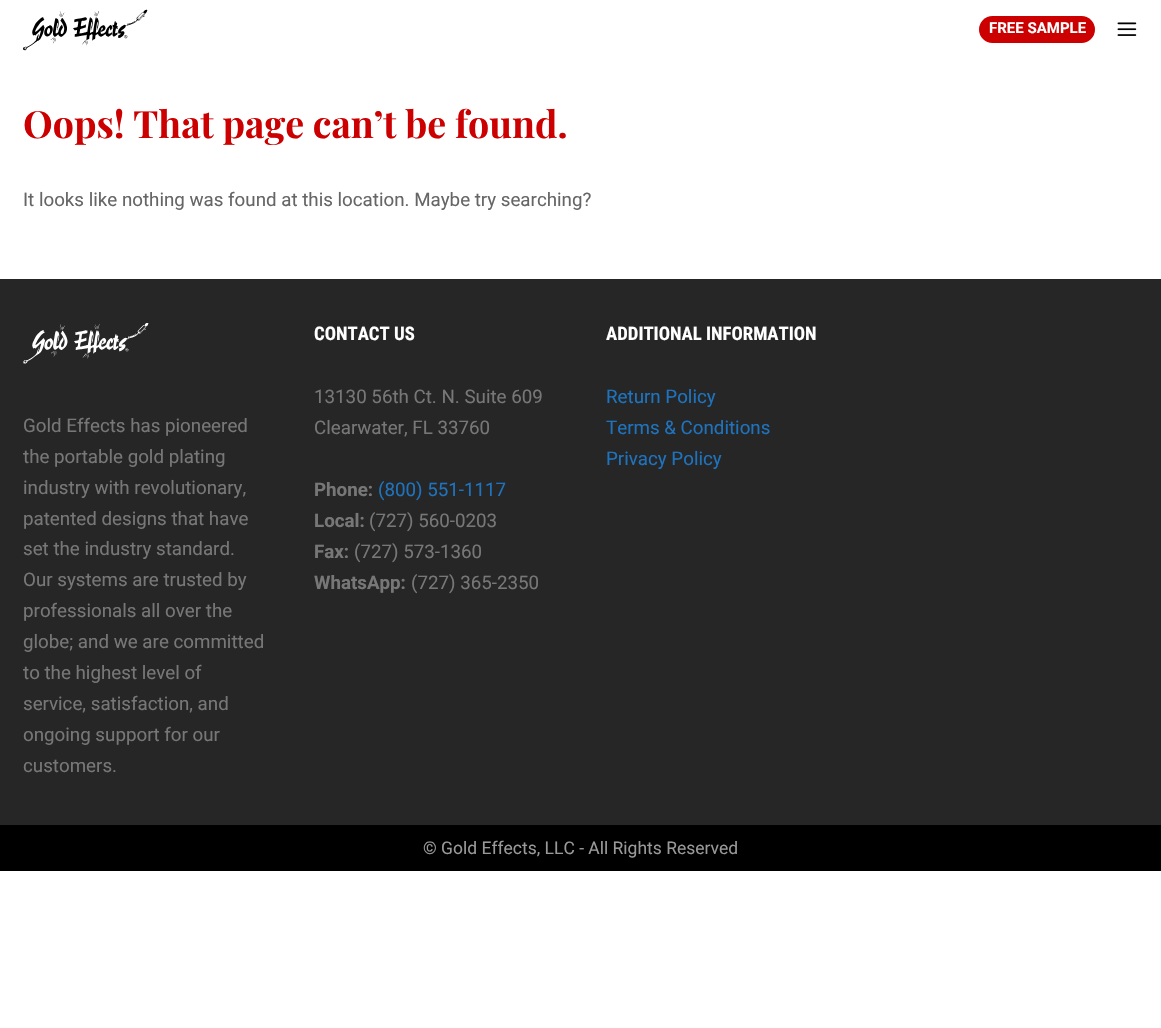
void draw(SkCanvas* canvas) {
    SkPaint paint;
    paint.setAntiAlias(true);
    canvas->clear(0xFFFFFFFF);
    canvas->drawImageRect(SkImages::DeferredFromEncodedData(SkData::MakeFromFileName("img1.png")), SkRect::MakeXYWH(23, 9, 125, 42), SkSamplingOptions());
    paint.setColor(0xFFCC0000);
    canvas->drawRoundRect(SkRect::MakeXYWH(979, 16, 116, 27), 13.5f, 13.5f, paint);
    SkFont font1(fontMgr->matchFamilyStyle("Roboto", SkFontStyle::Bold()), 15);
    font1.setSubpixel(true);
    paint.setColor(0xFFFFFFFF);
    canvas->drawString("FREE SAMPLE", 989, 33, font1, paint);
    canvas->drawImageRect(SkImages::DeferredFromEncodedData(SkData::MakeFromFileName("img2.png")), SkRect::MakeXYWH(1117, 22, 20, 14), SkSamplingOptions());
    SkFont font2(fontMgr->matchFamilyStyle("Playfair Display", SkFontStyle::Bold()), 37.5f);
    font2.setSubpixel(true);
    paint.setColor(0xFFCC0000);
    canvas->drawString("Oops! That page can’t be found.", 23, 138, font2, paint);
    SkFont font3(fontMgr->matchFamilyStyle("Roboto", SkFontStyle::Normal()), 18.75f);
    font3.setSubpixel(true);
    paint.setColor(0xFF666666);
    canvas->drawString("It looks like nothing was found at this location. Maybe try searching?", 23, 206, font3, paint);
    paint.setColor(0xFF262626);
    canvas->drawRect(SkRect::MakeXYWH(0, 279, 1161, 546), paint);
    SkFont font4(fontMgr->matchFamilyStyle("Roboto Condensed", SkFontStyle::Bold()), 18.75f);
    font4.setSubpixel(true);
    paint.setColor(0xFFFFFFFF);
    canvas->drawString("CONTACT US", 314, 340, font4, paint);
    paint.setColor(0xFF777777);
    canvas->drawString("13130 56th Ct. N. Suite 609", 314, 403, font3, paint);
    canvas->drawString("Clearwater, FL 33760", 314, 434, font3, paint);
    SkFont font5(fontMgr->matchFamilyStyle("Roboto", SkFontStyle::Bold()), 18.75f);
    font5.setSubpixel(true);
    canvas->drawString("Phone:", 314, 496, font5, paint);
    paint.setColor(0xFF1E73BE);
    canvas->drawString("(800) 551-1117", 378, 496, font3, paint);
    paint.setColor(0xFF777777);
    canvas->drawString("Local:", 314, 527, font5, paint);
    canvas->drawString("(727) 560-0203", 369, 527, font3, paint);
    canvas->drawString("Fax:", 314, 558, font5, paint);
    canvas->drawString("(727) 573-1360", 354, 558, font3, paint);
    canvas->drawString("WhatsApp:", 314, 589, font5, paint);
    canvas->drawString("(727) 365-2350", 411, 589, font3, paint);
    paint.setColor(0xFFFFFFFF);
    canvas->drawString("ADDITIONAL INFORMATION", 606, 340, font4, paint);
    paint.setColor(0xFF1E73BE);
    canvas->drawString("Return Policy", 606, 403, font3, paint);
    canvas->drawString("Terms & Conditions", 606, 434, font3, paint);
    canvas->drawString("Privacy Policy", 606, 465, font3, paint);
    canvas->drawImageRect(SkImages::DeferredFromEncodedData(SkData::MakeFromFileName("img3.png")), SkRect::MakeXYWH(23, 323, 126, 41), SkSamplingOptions());
    paint.setColor(0xFF777777);
    canvas->drawString("Gold Effects has pioneered", 23, 432, font3, paint);
    canvas->drawString("the portable gold plating", 23, 463, font3, paint);
    canvas->drawString("industry with revolutionary,", 23, 494, font3, paint);
    canvas->drawString("patented designs that have", 23, 525, font3, paint);
    canvas->drawString("set the industry standard.", 23, 555, font3, paint);
    canvas->drawString("Our systems are trusted by", 23, 586, font3, paint);
    canvas->drawString("professionals all over the", 23, 617, font3, paint);
    canvas->drawString("globe; and we are committed", 23, 648, font3, paint);
    canvas->drawString("to the highest level of", 23, 679, font3, paint);
    canvas->drawString("service, satisfaction, and", 23, 710, font3, paint);
    canvas->drawString("ongoing support for our", 23, 741, font3, paint);
    canvas->drawString("customers.", 23, 772, font3, paint);
    paint.setColor(0xFF000000);
    canvas->drawRect(SkRect::MakeXYWH(0, 825, 1161, 46), paint);
    SkFont font6(fontMgr->matchFamilyStyle("Roboto", SkFontStyle::Normal()), 17.5f);
    font6.setSubpixel(true);
    paint.setColor(0xFF999999);
    canvas->drawString("© Gold Effects, LLC - All Rights Reserved", 423, 854, font6, paint);
}
